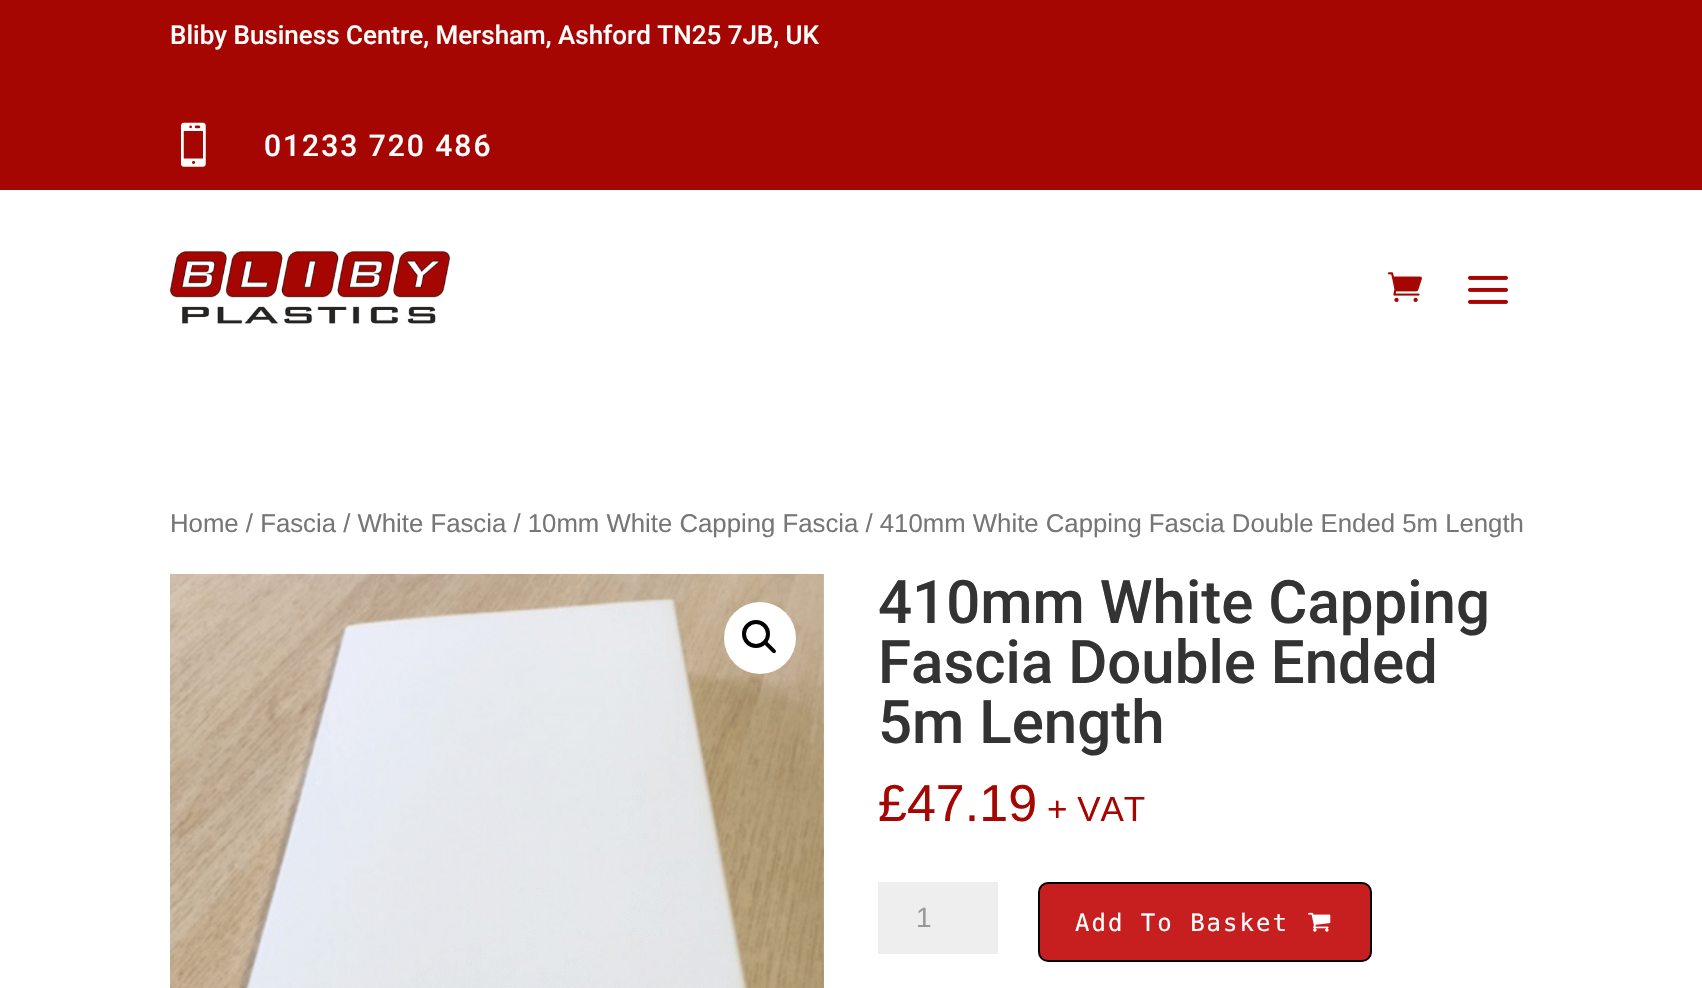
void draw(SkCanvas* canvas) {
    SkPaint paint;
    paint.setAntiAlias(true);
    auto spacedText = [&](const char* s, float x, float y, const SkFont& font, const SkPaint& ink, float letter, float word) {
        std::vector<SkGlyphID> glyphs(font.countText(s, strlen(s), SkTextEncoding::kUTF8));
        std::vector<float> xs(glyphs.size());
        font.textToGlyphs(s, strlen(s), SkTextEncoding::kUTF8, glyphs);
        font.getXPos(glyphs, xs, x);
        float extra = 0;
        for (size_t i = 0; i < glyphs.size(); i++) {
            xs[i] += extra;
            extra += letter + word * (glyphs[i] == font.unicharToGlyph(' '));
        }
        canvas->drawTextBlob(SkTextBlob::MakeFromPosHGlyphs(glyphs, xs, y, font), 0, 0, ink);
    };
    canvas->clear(0xFFFFFFFF);
    paint.setColor(0xFFA60602);
    canvas->drawRect(SkRect::MakeXYWH(0, 0, 1702, 190), paint);
    SkFont font1(fontMgr->matchFamilyStyle("Roboto", SkFontStyle(500, SkFontStyle::kNormal_Width, SkFontStyle::kUpright_Slant)), 26);
    font1.setSubpixel(true);
    paint.setColor(0xFFFFFFFF);
    canvas->drawString("Bliby Business Centre, Mersham, Ashford TN25 7JB, UK", 170, 44, font1, paint);
    canvas->drawImageRect(SkImages::DeferredFromEncodedData(SkData::MakeFromFileName("img1.png")), SkRect::MakeXYWH(181, 122, 25, 45), SkSamplingOptions());
    SkFont font2(fontMgr->matchFamilyStyle("Roboto", SkFontStyle(500, SkFontStyle::kNormal_Width, SkFontStyle::kUpright_Slant)), 30);
    font2.setSubpixel(true);
    spacedText("01233 720 486", 264, 156, font2, paint, 2, 0);
    canvas->drawImageRect(SkImages::DeferredFromEncodedData(SkData::MakeFromFileName("img2.png")), SkRect::MakeXYWH(170, 250, 280, 74), SkSamplingOptions());
    canvas->drawImageRect(SkImages::DeferredFromEncodedData(SkData::MakeFromFileName("img3.png")), SkRect::MakeXYWH(1387, 272, 35, 30), SkSamplingOptions());
    canvas->drawImageRect(SkImages::DeferredFromEncodedData(SkData::MakeFromFileName("img4.png")), SkRect::MakeXYWH(1468, 275, 40, 29), SkSamplingOptions());
    SkFont font3(fontMgr->matchFamilyStyle("Liberation Sans", SkFontStyle::Normal()), 25.75f);
    font3.setSubpixel(true);
    paint.setColor(0xFF767676);
    canvas->drawString("Home / Fascia / White Fascia / 10mm White Capping Fascia / 410mm White Capping Fascia Double Ended 5m Length", 170, 532, font3, paint);
    canvas->drawImageRect(SkImages::DeferredFromEncodedData(SkData::MakeFromFileName("img5.png")), SkRect::MakeXYWH(170, 574, 654, 414), SkSamplingOptions());
    paint.setColor(0xFFFFFFFF);
    canvas->drawCircle(760, 638, 36, paint);
    paint.setStyle(SkPaint::kStroke_Style);
    paint.setStrokeWidth(4);
    paint.setColor(0xFF000000);
    canvas->drawCircle(756, 634, 12, paint);
    paint.setStyle(SkPaint::kFill_Style);
    canvas->drawPath(SkPathBuilder().moveTo(764, 641.5f).cubicTo(765, 640.5f, 766, 640.5f, 767, 641.5f).lineTo(775.5f, 650).cubicTo(776, 650.5f, 776, 652, 775.5f, 652.5f).cubicTo(774.5f, 653.5f, 773.5f, 653.5f, 772.5f, 652.5f).lineTo(764, 644).cubicTo(763.5f, 643.5f, 763.5f, 642, 764, 641.5f).close().detach(), paint);
    SkFont font4(fontMgr->matchFamilyStyle("Roboto", SkFontStyle(500, SkFontStyle::kNormal_Width, SkFontStyle::kUpright_Slant)), 60);
    font4.setSubpixel(true);
    paint.setColor(0xFF333333);
    canvas->drawString("410mm White Capping", 878, 623, font4, paint);
    canvas->drawString("Fascia Double Ended", 878, 683, font4, paint);
    canvas->drawString("5m Length", 878, 743, font4, paint);
    SkFont font5(fontMgr->matchFamilyStyle("Liberation Sans", SkFontStyle::Normal()), 52);
    font5.setSubpixel(true);
    paint.setColor(0xFFA60602);
    canvas->drawString("£47.19", 878, 821, font5, paint);
    SkFont font6(fontMgr->matchFamilyStyle("Liberation Sans", SkFontStyle::Normal()), 35);
    font6.setSubpixel(true);
    canvas->drawString("+ VAT", 1047, 821, font6, paint);
    paint.setColor(0xFFEEEEEE);
    canvas->drawRect(SkRect::MakeXYWH(878, 882, 120, 72), paint);
    SkFont font7(fontMgr->matchFamilyStyle("Liberation Sans", SkFontStyle::Normal()), 28);
    font7.setSubpixel(true);
    paint.setColor(0xFF999999);
    canvas->drawString("1", 916, 927, font7, paint);
    paint.setColor(0xFFC71F1F);
    canvas->drawRoundRect(SkRect::MakeXYWH(1039, 883, 332, 78), 9, 9, paint);
    paint.setStyle(SkPaint::kStroke_Style);
    paint.setStrokeWidth(2);
    paint.setColor(0xFF000000);
    canvas->drawRoundRect(SkRect::MakeXYWH(1039, 883, 332, 78), 9, 9, paint);
    SkFont font8(fontMgr->matchFamilyStyle("DejaVu Sans Mono", SkFontStyle::Normal()), 24);
    font8.setSubpixel(true);
    paint.setStyle(SkPaint::kFill_Style);
    paint.setColor(0xFFFFFFFF);
    spacedText("Add To Basket", 1075, 931, font8, paint, 2, 0);
    canvas->drawImageRect(SkImages::DeferredFromEncodedData(SkData::MakeFromFileName("img6.png")), SkRect::MakeXYWH(1308, 912, 23, 20), SkSamplingOptions());
}
